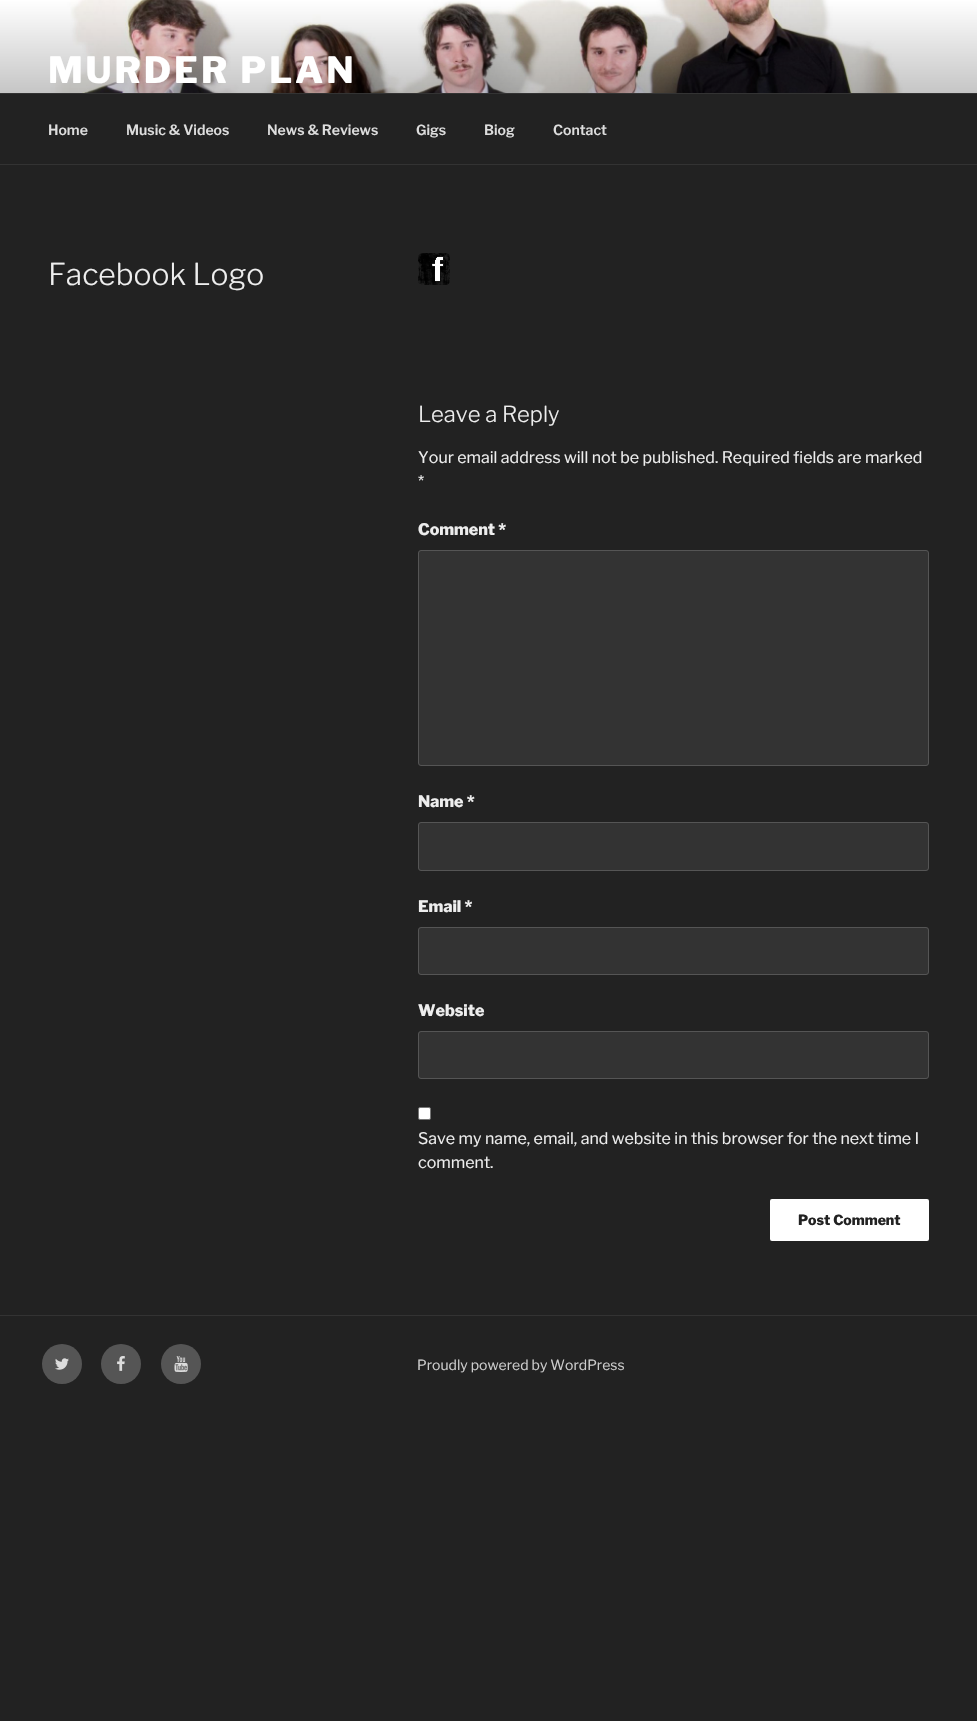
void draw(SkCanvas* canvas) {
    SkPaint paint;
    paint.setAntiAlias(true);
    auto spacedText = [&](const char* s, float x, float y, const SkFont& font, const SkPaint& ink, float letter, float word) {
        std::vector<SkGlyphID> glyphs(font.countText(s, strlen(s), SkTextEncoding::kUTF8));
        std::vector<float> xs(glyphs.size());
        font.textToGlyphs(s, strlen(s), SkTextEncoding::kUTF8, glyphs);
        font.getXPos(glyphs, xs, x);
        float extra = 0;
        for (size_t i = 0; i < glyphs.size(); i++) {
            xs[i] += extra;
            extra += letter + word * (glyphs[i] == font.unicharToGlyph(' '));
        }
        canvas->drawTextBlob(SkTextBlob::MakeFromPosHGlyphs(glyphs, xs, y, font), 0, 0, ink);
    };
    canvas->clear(0xFF222222);
    canvas->drawImageRect(SkImages::DeferredFromEncodedData(SkData::MakeFromFileName("img1.png")), SkRect::MakeXYWH(0, 0, 977, 93), SkSamplingOptions());
    SkFont font1(fontMgr->matchFamilyStyle("Libre Franklin", SkFontStyle(800, SkFontStyle::kNormal_Width, SkFontStyle::kUpright_Slant)), 36);
    font1.setSubpixel(true);
    paint.setColor(0xFFFFFFFF);
    spacedText("MURDER PLAN", 48, 83, font1, paint, 2.9f, 0);
    paint.setColor(0xFF333333);
    canvas->drawRect(SkRect::MakeXYWH(0, 93, 977, 1), paint);
    canvas->drawRect(SkRect::MakeXYWH(0, 164, 977, 1), paint);
    SkFont font2(fontMgr->matchFamilyStyle("Libre Franklin", SkFontStyle(600, SkFontStyle::kNormal_Width, SkFontStyle::kUpright_Slant)), 14);
    font2.setSubpixel(true);
    paint.setColor(0xFFDDDDDD);
    canvas->drawString("Home", 48, 135, font2, paint);
    canvas->drawString("Music & Videos", 126, 135, font2, paint);
    canvas->drawString("News & Reviews", 267, 135, font2, paint);
    canvas->drawString("Gigs", 416, 135, font2, paint);
    canvas->drawString("Biog", 484, 135, font2, paint);
    canvas->drawString("Contact", 553, 135, font2, paint);
    SkFont font3(fontMgr->matchFamilyStyle("Libre Franklin", SkFontStyle(300, SkFontStyle::kNormal_Width, SkFontStyle::kUpright_Slant)), 30);
    font3.setSubpixel(true);
    paint.setColor(0xFFEEEEEE);
    canvas->drawString("Facebook Logo", 48, 285, font3, paint);
    canvas->drawImageRect(SkImages::DeferredFromEncodedData(SkData::MakeFromFileName("img2.png")), SkRect::MakeXYWH(418, 253, 32, 32), SkSamplingOptions());
    SkFont font4(fontMgr->matchFamilyStyle("Libre Franklin", SkFontStyle(300, SkFontStyle::kNormal_Width, SkFontStyle::kUpright_Slant)), 22);
    font4.setSubpixel(true);
    canvas->drawString("Leave a Reply", 418, 422, font4, paint);
    SkFont font5(fontMgr->matchFamilyStyle("Libre Franklin", SkFontStyle::Normal()), 16);
    font5.setSubpixel(true);
    canvas->drawString("Your email address will not be published. Required fields are marked", 418, 463, font5, paint);
    canvas->drawString("*", 418, 487, font5, paint);
    SkFont font6(fontMgr->matchFamilyStyle("Libre Franklin", SkFontStyle(800, SkFontStyle::kNormal_Width, SkFontStyle::kUpright_Slant)), 16);
    font6.setSubpixel(true);
    canvas->drawString("Comment *", 418, 535, font6, paint);
    paint.setColor(0xFF333333);
    canvas->drawRoundRect(SkRect::MakeXYWH(418.5f, 550.5f, 510, 215), 2.5f, 2.5f, paint);
    paint.setStyle(SkPaint::kStroke_Style);
    paint.setStrokeWidth(1);
    paint.setColor(0xFF555555);
    canvas->drawRoundRect(SkRect::MakeXYWH(418.5f, 550.5f, 510, 215), 2.5f, 2.5f, paint);
    paint.setStyle(SkPaint::kFill_Style);
    paint.setColor(0xFFEEEEEE);
    canvas->drawString("Name *", 418, 807, font6, paint);
    paint.setColor(0xFF333333);
    canvas->drawRoundRect(SkRect::MakeXYWH(418.5f, 822.5f, 510, 48), 2.5f, 2.5f, paint);
    paint.setStyle(SkPaint::kStroke_Style);
    paint.setColor(0xFF555555);
    canvas->drawRoundRect(SkRect::MakeXYWH(418.5f, 822.5f, 510, 48), 2.5f, 2.5f, paint);
    paint.setStyle(SkPaint::kFill_Style);
    paint.setColor(0xFFEEEEEE);
    canvas->drawString("Email *", 418, 912, font6, paint);
    paint.setColor(0xFF333333);
    canvas->drawRoundRect(SkRect::MakeXYWH(418.5f, 927.5f, 510, 47), 2.5f, 2.5f, paint);
    paint.setStyle(SkPaint::kStroke_Style);
    paint.setColor(0xFF555555);
    canvas->drawRoundRect(SkRect::MakeXYWH(418.5f, 927.5f, 510, 47), 2.5f, 2.5f, paint);
    paint.setStyle(SkPaint::kFill_Style);
    paint.setColor(0xFFEEEEEE);
    canvas->drawString("Website", 418, 1016, font6, paint);
    paint.setColor(0xFF333333);
    canvas->drawRoundRect(SkRect::MakeXYWH(418.5f, 1031.5f, 510, 47), 2.5f, 2.5f, paint);
    paint.setStyle(SkPaint::kStroke_Style);
    paint.setColor(0xFF555555);
    canvas->drawRoundRect(SkRect::MakeXYWH(418.5f, 1031.5f, 510, 47), 2.5f, 2.5f, paint);
    paint.setStyle(SkPaint::kFill_Style);
    paint.setColor(0xFFFFFFFF);
    canvas->drawRoundRect(SkRect::MakeXYWH(418.5f, 1107.5f, 12, 12), 1.5f, 1.5f, paint);
    paint.setStyle(SkPaint::kStroke_Style);
    paint.setColor(0xFF767676);
    canvas->drawRoundRect(SkRect::MakeXYWH(418.5f, 1107.5f, 12, 12), 1.5f, 1.5f, paint);
    paint.setStyle(SkPaint::kFill_Style);
    paint.setColor(0xFFEEEEEE);
    canvas->drawString("Save my name, email, and website in this browser for the next time I", 418, 1144, font5, paint);
    canvas->drawString("comment.", 418, 1168, font5, paint);
    paint.setColor(0xFFFFFFFF);
    canvas->drawRoundRect(SkRect::MakeXYWH(770, 1199, 159, 42), 2, 2, paint);
    SkFont font7(fontMgr->matchFamilyStyle("Libre Franklin", SkFontStyle(800, SkFontStyle::kNormal_Width, SkFontStyle::kUpright_Slant)), 14);
    font7.setSubpixel(true);
    paint.setColor(0xFF222222);
    canvas->drawString("Post Comment", 798, 1225, font7, paint);
    paint.setColor(0xFF333333);
    canvas->drawRect(SkRect::MakeXYWH(0, 1315, 977, 1), paint);
    paint.setColor(0xFF555555);
    canvas->drawCircle(62, 1364, 20, paint);
    canvas->drawImageRect(SkImages::DeferredFromEncodedData(SkData::MakeFromFileName("img3.png")), SkRect::MakeXYWH(55, 1358, 14, 12), SkSamplingOptions());
    canvas->drawCircle(121, 1364, 20, paint);
    canvas->drawImageRect(SkImages::DeferredFromEncodedData(SkData::MakeFromFileName("img4.png")), SkRect::MakeXYWH(117, 1356, 8, 15), SkSamplingOptions());
    canvas->drawCircle(181, 1364, 20, paint);
    canvas->drawImageRect(SkImages::DeferredFromEncodedData(SkData::MakeFromFileName("img5.png")), SkRect::MakeXYWH(174, 1356, 14, 16), SkSamplingOptions());
    SkFont font8(fontMgr->matchFamilyStyle("Libre Franklin", SkFontStyle::Normal()), 14);
    font8.setSubpixel(true);
    paint.setColor(0xFFCCCCCC);
    canvas->drawString("Proudly powered by WordPress", 417, 1370, font8, paint);
}
